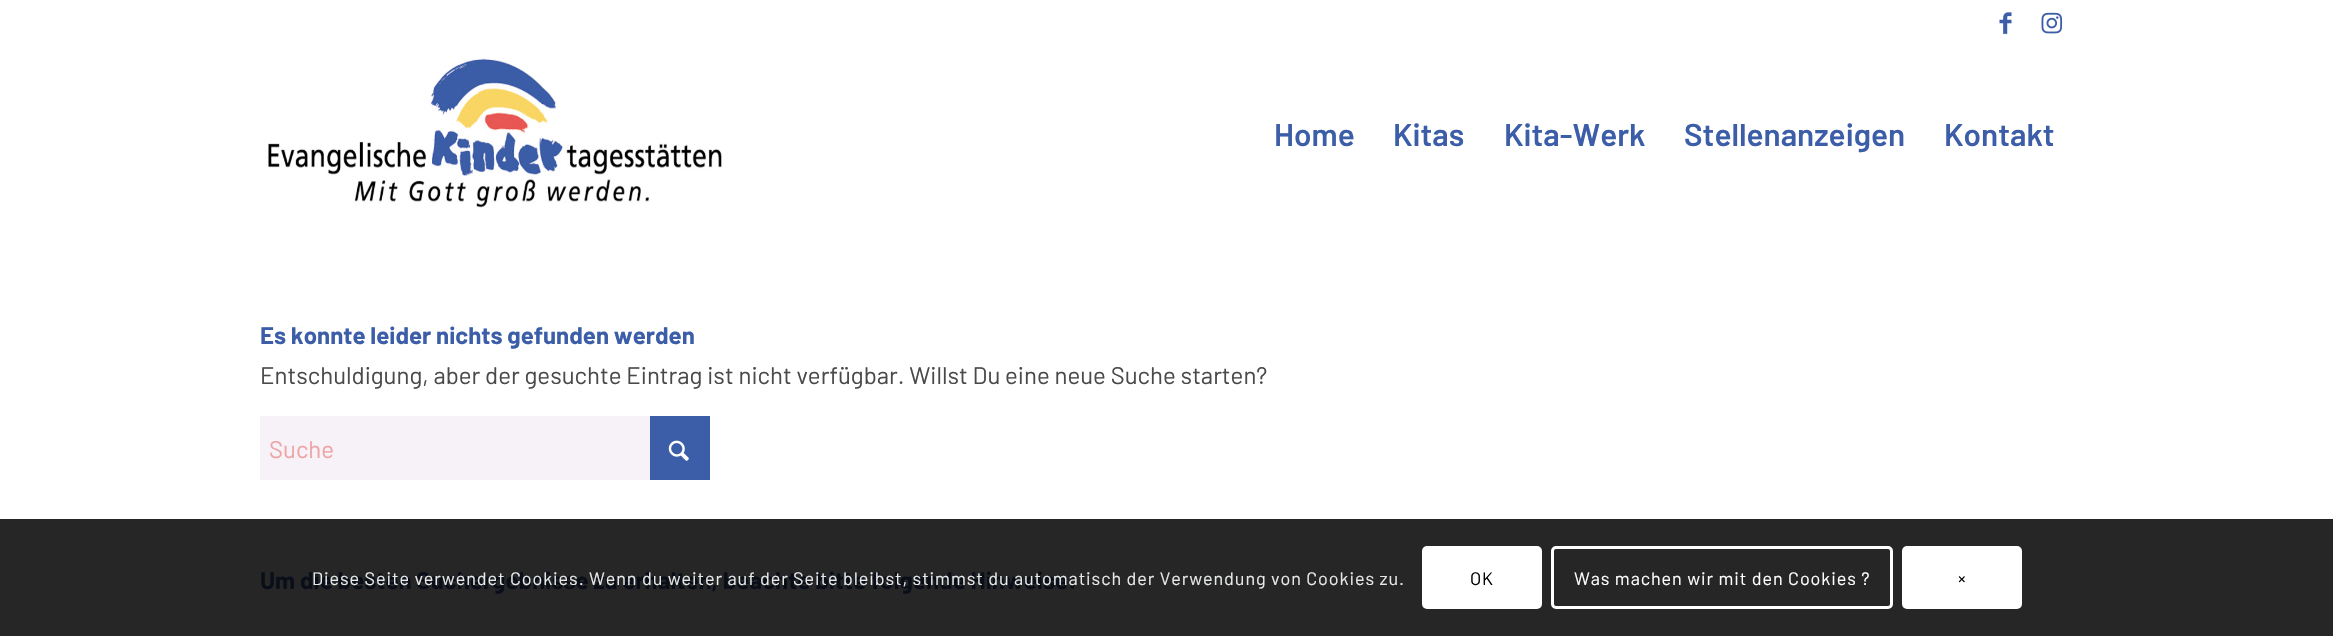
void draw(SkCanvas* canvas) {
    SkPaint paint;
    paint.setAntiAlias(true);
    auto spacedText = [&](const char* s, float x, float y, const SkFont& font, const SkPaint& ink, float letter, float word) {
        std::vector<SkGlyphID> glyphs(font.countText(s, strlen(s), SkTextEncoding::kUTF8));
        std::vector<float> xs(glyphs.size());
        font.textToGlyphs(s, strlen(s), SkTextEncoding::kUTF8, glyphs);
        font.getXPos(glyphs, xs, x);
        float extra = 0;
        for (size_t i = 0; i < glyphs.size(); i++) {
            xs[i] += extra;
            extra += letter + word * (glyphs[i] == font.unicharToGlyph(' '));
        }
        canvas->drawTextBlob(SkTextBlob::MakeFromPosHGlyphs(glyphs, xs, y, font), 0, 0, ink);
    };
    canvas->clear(0xFFFFFFFF);
    paint.setColor(0xFF262626);
    canvas->drawRect(SkRect::MakeXYWH(0, 519, 2333, 117), paint);
    canvas->drawImageRect(SkImages::DeferredFromEncodedData(SkData::MakeFromFileName("img1.png")), SkRect::MakeXYWH(1999, 12, 13, 22), SkSamplingOptions());
    canvas->drawImageRect(SkImages::DeferredFromEncodedData(SkData::MakeFromFileName("img2.png")), SkRect::MakeXYWH(2041, 12, 22, 22), SkSamplingOptions());
    canvas->drawImageRect(SkImages::DeferredFromEncodedData(SkData::MakeFromFileName("img3.png")), SkRect::MakeXYWH(268, 58, 454, 150), SkSamplingOptions());
    SkFont font1(fontMgr->matchFamilyStyle("Barlow", SkFontStyle(600, SkFontStyle::kNormal_Width, SkFontStyle::kUpright_Slant)), 31.5f);
    font1.setSubpixel(true);
    paint.setColor(0xFF3C5EA8);
    canvas->drawString("Home", 1274, 146, font1, paint);
    canvas->drawString("Kitas", 1393, 146, font1, paint);
    canvas->drawString("Kita-Werk", 1504, 146, font1, paint);
    canvas->drawString("Stellenanzeigen", 1684, 146, font1, paint);
    canvas->drawString("Kontakt", 1944, 146, font1, paint);
    SkFont font2(fontMgr->matchFamilyStyle("Barlow", SkFontStyle::Bold()), 24);
    font2.setSubpixel(true);
    canvas->drawString("Es konnte leider nichts gefunden werden", 260, 344, font2, paint);
    SkFont font3(fontMgr->matchFamilyStyle("Barlow", SkFontStyle::Normal()), 24);
    font3.setSubpixel(true);
    paint.setColor(0xFF4A4A4A);
    canvas->drawString("Entschuldigung, aber der gesuchte Eintrag ist nicht verfügbar. Willst Du eine neue Suche starten?", 260, 384, font3, paint);
    paint.setColor(0xFF3C5EA8);
    canvas->drawRect(SkRect::MakeXYWH(650, 416, 60, 64), paint);
    paint.setColor(0xFFF6F2F7);
    canvas->drawRect(SkRect::MakeXYWH(260, 416, 390, 64), paint);
    paint.setColor(0xFFEFA4A6);
    canvas->drawString("Suche", 269, 458, font3, paint);
    canvas->drawImageRect(SkImages::DeferredFromEncodedData(SkData::MakeFromFileName("img4.png")), SkRect::MakeXYWH(668, 440, 21, 21), SkSamplingOptions());
    paint.setColor(0xFF090E19);
    canvas->drawString("Um die besten Suchergebnisse zu erhalten, beachte bitte folgende Hinweise:", 260, 589, font2, paint);
    SkFont font4(fontMgr->matchFamilyStyle("Barlow", SkFontStyle::Normal()), 18);
    font4.setSubpixel(true);
    paint.setColor(0xFFE8E9E9);
    spacedText("Diese Seite verwendet Cookies. Wenn du weiter auf der Seite bleibst, stimmst du automatisch der Verwendung von Cookies zu.", 312, 585, font4, paint, 0.9f, 0);
    paint.setColor(0xFFFFFFFF);
    canvas->drawRoundRect(SkRect::MakeXYWH(1422, 546, 120, 63), 5, 5, paint);
    paint.setColor(0xFF000000);
    spacedText("OK", 1470, 585, font4, paint, 0.9f, 0);
    paint.setStyle(SkPaint::kStroke_Style);
    paint.setStrokeWidth(3);
    paint.setColor(0xFFFFFFFF);
    canvas->drawRoundRect(SkRect::MakeXYWH(1552.5f, 547.5f, 339, 60), 3.5f, 3.5f, paint);
    paint.setStyle(SkPaint::kFill_Style);
    spacedText("Was machen wir mit den Cookies ?", 1574, 585, font4, paint, 0.9f, 0);
    canvas->drawRoundRect(SkRect::MakeXYWH(1902, 546, 120, 63), 5, 5, paint);
    paint.setColor(0xFF000000);
    spacedText("×", 1958, 585, font4, paint, 0.9f, 0);
}
